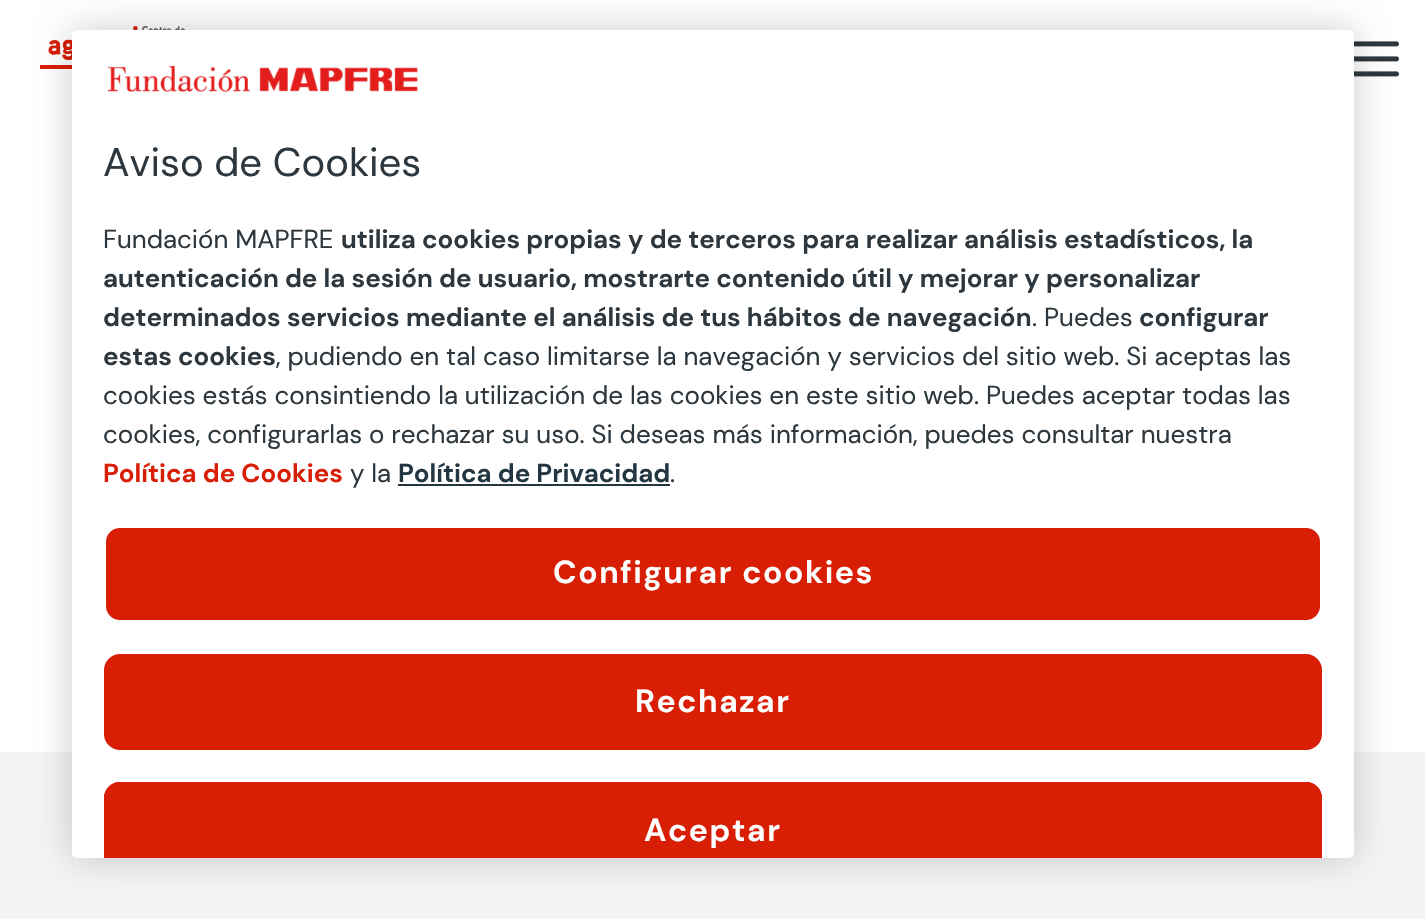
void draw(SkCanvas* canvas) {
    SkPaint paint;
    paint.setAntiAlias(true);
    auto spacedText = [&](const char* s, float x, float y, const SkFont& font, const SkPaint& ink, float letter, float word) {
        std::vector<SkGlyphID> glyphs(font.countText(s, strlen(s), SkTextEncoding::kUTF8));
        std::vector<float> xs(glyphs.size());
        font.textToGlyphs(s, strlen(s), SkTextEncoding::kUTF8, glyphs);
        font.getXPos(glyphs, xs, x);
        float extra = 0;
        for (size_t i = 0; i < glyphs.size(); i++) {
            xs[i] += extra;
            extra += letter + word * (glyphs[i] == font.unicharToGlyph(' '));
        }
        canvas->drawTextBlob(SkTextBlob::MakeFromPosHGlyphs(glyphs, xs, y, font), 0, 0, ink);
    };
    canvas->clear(0xFFFFFFFF);
    canvas->drawImageRect(SkImages::DeferredFromEncodedData(SkData::MakeFromFileName("img1.png")), SkRect::MakeXYWH(40, 26, 145, 43), SkSamplingOptions());
    canvas->drawImageRect(SkImages::DeferredFromEncodedData(SkData::MakeFromFileName("img2.png")), SkRect::MakeXYWH(1354, 41, 45, 36), SkSamplingOptions());
    paint.setColor(0xFFF4F4F4);
    canvas->drawRect(SkRect::MakeXYWH(0, 752, 1425, 167), paint);
    paint.setColor(0x33000000);
    paint.setMaskFilter(SkMaskFilter::MakeBlur(kNormal_SkBlurStyle, 18));
    canvas->drawRoundRect(SkRect::MakeXYWH(72, 30, 1282, 828), 5, 5, paint);
    paint.setMaskFilter(nullptr);
    paint.setColor(0xFFFFFFFF);
    canvas->drawRoundRect(SkRect::MakeXYWH(72, 30, 1282, 828), 5, 5, paint);
    canvas->drawImageRect(SkImages::DeferredFromEncodedData(SkData::MakeFromFileName("img3.png")), SkRect::MakeXYWH(107, 65, 311, 27), SkSamplingOptions());
    SkFont font1(fontMgr->matchFamilyStyle("DM Sans", SkFontStyle::Normal()), 40);
    font1.setSubpixel(true);
    paint.setColor(0xFF2D373D);
    canvas->drawString("Aviso de Cookies", 103, 176, font1, paint);
    SkFont font2(fontMgr->matchFamilyStyle("DM Sans", SkFontStyle::Normal()), 26);
    font2.setSubpixel(true);
    canvas->drawString("Fundación MAPFRE", 103, 248, font2, paint);
    SkFont font3(fontMgr->matchFamilyStyle("DM Sans", SkFontStyle::Bold()), 26);
    font3.setSubpixel(true);
    canvas->drawString("utiliza cookies propias y de terceros para realizar análisis estadísticos, la", 341, 248, font3, paint);
    canvas->drawString("autenticación de la sesión de usuario, mostrarte contenido útil y mejorar y personalizar", 103, 287, font3, paint);
    canvas->drawString("determinados servicios mediante el análisis de tus hábitos de navegación", 103, 326, font3, paint);
    canvas->drawString(". Puedes", 1032, 326, font2, paint);
    canvas->drawString("configurar", 1139, 326, font3, paint);
    canvas->drawString("estas cookies", 103, 365, font3, paint);
    canvas->drawString(", pudiendo en tal caso limitarse la navegación y servicios del sitio web. Si aceptas las", 276, 365, font2, paint);
    canvas->drawString("cookies estás consintiendo la utilización de las cookies en este sitio web. Puedes aceptar todas las", 103, 404, font2, paint);
    canvas->drawString("cookies, configurarlas o rechazar su uso. Si deseas más información, puedes consultar nuestra", 103, 443, font2, paint);
    paint.setColor(0xFFD81E05);
    canvas->drawString("Política de Cookies", 103, 482, font3, paint);
    paint.setColor(0xFF2D373D);
    canvas->drawString("y la", 350, 482, font2, paint);
    paint.setColor(0xFF233742);
    canvas->drawString("Política de Privacidad", 398, 482, font3, paint);
    canvas->drawRect(SkRect::MakeXYWH(398, 484, 272, 2), paint);
    paint.setColor(0xFF2D373D);
    canvas->drawString(".", 670, 482, font2, paint);
    paint.setColor(0xFFD81E05);
    canvas->drawRoundRect(SkRect::MakeXYWH(105, 527, 1216, 94), 15, 15, paint);
    paint.setStyle(SkPaint::kStroke_Style);
    paint.setStrokeWidth(2);
    paint.setColor(0xFFFFFFFF);
    canvas->drawRoundRect(SkRect::MakeXYWH(105, 527, 1216, 94), 15, 15, paint);
    SkFont font4(fontMgr->matchFamilyStyle("DM Sans", SkFontStyle::Bold()), 32);
    font4.setSubpixel(true);
    paint.setStyle(SkPaint::kFill_Style);
    spacedText("Configurar cookies", 553, 583, font4, paint, 1.6f, 0);
    paint.setColor(0xFFD81E05);
    canvas->drawRoundRect(SkRect::MakeXYWH(105, 655, 1216, 94), 15, 15, paint);
    paint.setStyle(SkPaint::kStroke_Style);
    canvas->drawRoundRect(SkRect::MakeXYWH(105, 655, 1216, 94), 15, 15, paint);
    paint.setStyle(SkPaint::kFill_Style);
    paint.setColor(0xFFFFFFFF);
    spacedText("Rechazar", 635, 712, font4, paint, 1.6f, 0);
    paint.setColor(0xFFD81E05);
    canvas->drawPath(SkPathBuilder().moveTo(120, 782).lineTo(1306, 782).cubicTo(1315, 782, 1322, 789, 1322, 798).lineTo(1322, 858).lineTo(104, 858).lineTo(104, 798).cubicTo(104, 789, 111, 782, 120, 782).close().detach(), paint);
    canvas->drawPath(SkPathBuilder().moveTo(120, 782).cubicTo(111, 782, 104, 789, 104, 798).lineTo(104, 858).lineTo(106, 858).lineTo(106, 798).cubicTo(106, 790, 112, 784, 120, 784).lineTo(1306, 784).cubicTo(1314, 784, 1320, 790, 1320, 798).lineTo(1320, 858).lineTo(1322, 858).lineTo(1322, 798).cubicTo(1322, 789, 1315, 782, 1306, 782).close().detach(), paint);
    paint.setColor(0xFFFFFFFF);
    spacedText("Aceptar", 644, 841, font4, paint, 1.6f, 0);
}
